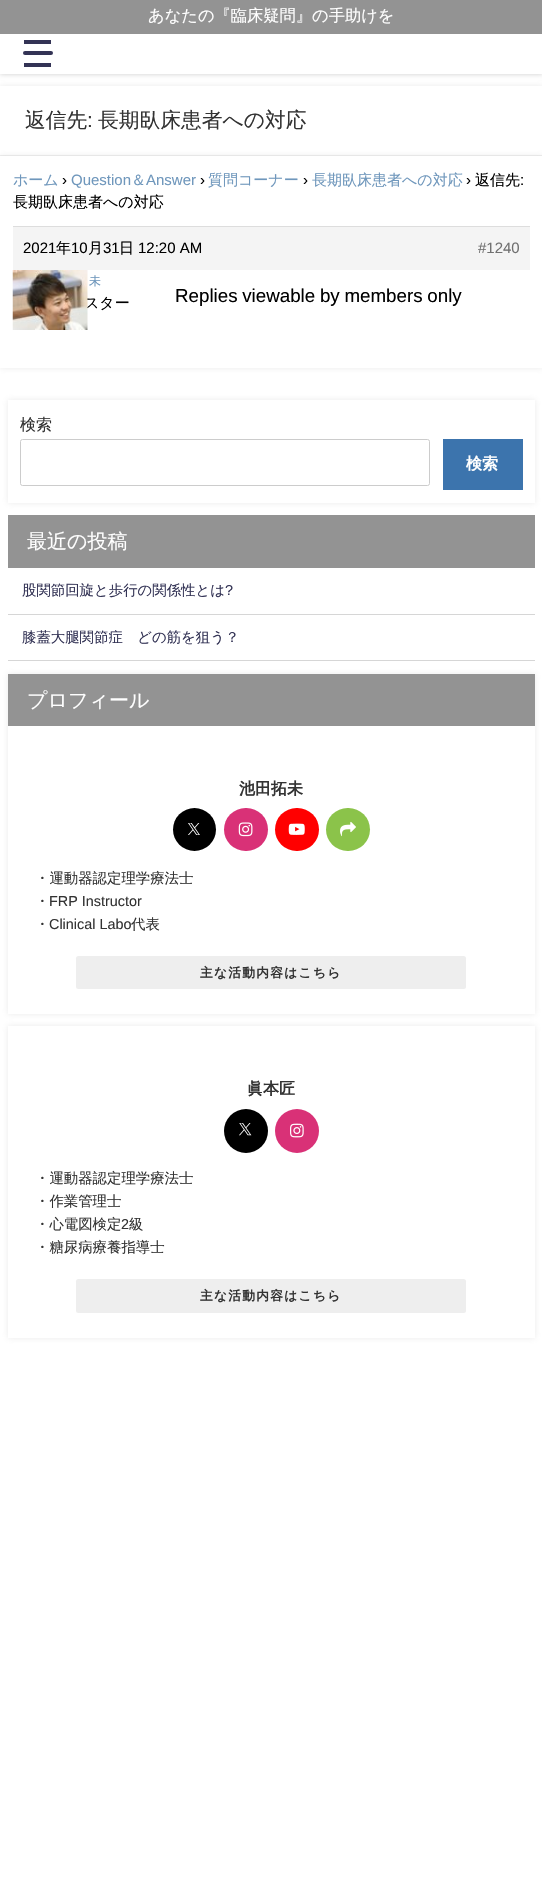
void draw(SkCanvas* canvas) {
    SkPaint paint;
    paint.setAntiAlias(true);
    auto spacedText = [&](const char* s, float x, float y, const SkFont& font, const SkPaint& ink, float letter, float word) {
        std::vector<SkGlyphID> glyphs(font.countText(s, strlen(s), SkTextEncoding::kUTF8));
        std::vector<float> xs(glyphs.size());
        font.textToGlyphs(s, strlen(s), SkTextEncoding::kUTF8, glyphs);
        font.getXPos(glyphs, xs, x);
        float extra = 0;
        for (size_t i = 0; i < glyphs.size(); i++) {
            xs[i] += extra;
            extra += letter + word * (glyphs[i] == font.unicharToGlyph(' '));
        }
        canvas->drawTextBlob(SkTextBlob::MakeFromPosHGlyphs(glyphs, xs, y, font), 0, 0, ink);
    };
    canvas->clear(0xFFFFFFFF);
    paint.setColor(0x33000000);
    paint.setMaskFilter(SkMaskFilter::MakeBlur(kNormal_SkBlurStyle, 2.5f));
    canvas->drawRect(SkRect::MakeXYWH(0, 0, 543, 74), paint);
    paint.setMaskFilter(nullptr);
    paint.setColor(0xFFFFFFFF);
    canvas->drawRect(SkRect::MakeXYWH(0, 34, 542, 40), paint);
    paint.setColor(0xFF939393);
    canvas->drawRect(SkRect::MakeXYWH(0, 0, 542, 34), paint);
    SkFont font1(fontMgr->matchFamilyStyle("WenQuanYi Zen Hei", SkFontStyle(500, SkFontStyle::kNormal_Width, SkFontStyle::kUpright_Slant)), 16.25f);
    font1.setSubpixel(true);
    paint.setColor(0xFFFFFFFF);
    canvas->drawString("あなたの『臨床疑問』の手助けを", 148, 21, font1, paint);
    paint.setColor(0xFF333355);
    canvas->drawRect(SkRect::MakeXYWH(24, 40, 27, 4), paint);
    canvas->drawRoundRect(SkRect::MakeXYWH(23, 51, 30, 4), 2, 2, paint);
    canvas->drawRect(SkRect::MakeXYWH(24, 63, 27, 4), paint);
    paint.setColor(0x33969696);
    paint.setMaskFilter(SkMaskFilter::MakeBlur(kNormal_SkBlurStyle, 3));
    canvas->drawRect(SkRect::MakeXYWH(0, 86, 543, 70), paint);
    paint.setMaskFilter(nullptr);
    paint.setColor(0xFFFFFFFF);
    canvas->drawRect(SkRect::MakeXYWH(0, 86, 542, 69), paint);
    paint.setColor(0xFFEEEEEE);
    canvas->drawRect(SkRect::MakeXYWH(0, 155, 542, 1), paint);
    SkFont font2(fontMgr->matchFamilyStyle("WenQuanYi Zen Hei", SkFontStyle(500, SkFontStyle::kNormal_Width, SkFontStyle::kUpright_Slant)), 20.75f);
    font2.setSubpixel(true);
    paint.setColor(0xFF333333);
    canvas->drawString("返信先", 25, 127, font2, paint);
    SkFont font3(fontMgr->matchFamilyStyle("Liberation Sans", SkFontStyle::Normal()), 20.75f);
    font3.setSubpixel(true);
    canvas->drawString(":", 87, 127, font3, paint);
    canvas->drawString("長期臥床患者への対応", 98, 127, font2, paint);
    paint.setColor(0x33969696);
    paint.setMaskFilter(SkMaskFilter::MakeBlur(kNormal_SkBlurStyle, 3));
    canvas->drawRect(SkRect::MakeXYWH(0, 156, 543, 212), paint);
    paint.setMaskFilter(nullptr);
    paint.setColor(0xFFFFFFFF);
    canvas->drawRect(SkRect::MakeXYWH(0, 156, 542, 212), paint);
    SkFont font4(fontMgr->matchFamilyStyle("WenQuanYi Zen Hei", SkFontStyle(500, SkFontStyle::kNormal_Width, SkFontStyle::kUpright_Slant)), 15);
    font4.setSubpixel(true);
    paint.setColor(0xFF6F97BC);
    canvas->drawString("ホーム", 13, 185, font4, paint);
    SkFont font5(fontMgr->matchFamilyStyle("Liberation Sans", SkFontStyle::Normal()), 15);
    font5.setSubpixel(true);
    paint.setColor(0xFF000000);
    canvas->drawString("›", 62, 185, font5, paint);
    paint.setColor(0xFF6F97BC);
    canvas->drawString("Question", 71, 185, font5, paint);
    canvas->drawString("＆", 131, 185, font4, paint);
    canvas->drawString("Answer", 146, 185, font5, paint);
    paint.setColor(0xFF000000);
    canvas->drawString("›", 200, 185, font5, paint);
    paint.setColor(0xFF6F97BC);
    canvas->drawString("質問コーナー", 208, 185, font4, paint);
    paint.setColor(0xFF000000);
    canvas->drawString("›", 303, 185, font5, paint);
    paint.setColor(0xFF6F97BC);
    canvas->drawString("長期臥床患者への対応", 312, 185, font4, paint);
    paint.setColor(0xFF000000);
    canvas->drawString("›", 466, 185, font5, paint);
    canvas->drawString("返信先", 475, 185, font4, paint);
    canvas->drawString(":", 520, 185, font5, paint);
    canvas->drawString("長期臥床患者への対応", 13, 207, font4, paint);
    paint.setColor(0xFFF4F4F4);
    canvas->drawRect(SkRect::MakeXYWH(13, 227, 517, 43), paint);
    paint.setColor(0xFFDDDDDD);
    canvas->drawRect(SkRect::MakeXYWH(13, 226, 517, 1), paint);
    paint.setColor(0xFF000000);
    canvas->drawString("2021", 23, 253, font5, paint);
    canvas->drawString("年", 56, 253, font4, paint);
    canvas->drawString("10", 71, 253, font5, paint);
    canvas->drawString("月", 88, 253, font4, paint);
    canvas->drawString("31", 103, 253, font5, paint);
    canvas->drawString("日", 119, 253, font4, paint);
    canvas->drawString("12:20 AM", 138, 253, font5, paint);
    paint.setColor(0xFF707070);
    canvas->drawString("#1240", 478, 253, font5, paint);
    paint.setColor(0xFF000000);
    canvas->drawString("スター", 84, 308, font4, paint);
    canvas->drawImageRect(SkImages::DeferredFromEncodedData(SkData::MakeFromFileName("img1.png")), SkRect::MakeXYWH(12, 270, 76, 60), SkSamplingOptions());
    SkFont font6(fontMgr->matchFamilyStyle("WenQuanYi Zen Hei", SkFontStyle(500, SkFontStyle::kNormal_Width, SkFontStyle::kUpright_Slant)), 12);
    font6.setSubpixel(true);
    paint.setColor(0xFF6F97BC);
    canvas->drawString("未", 89, 285, font6, paint);
    SkFont font7(fontMgr->matchFamilyStyle("Liberation Sans", SkFontStyle::Normal()), 18.75f);
    font7.setSubpixel(true);
    paint.setColor(0xFF000000);
    spacedText("Replies viewable by members only", 175, 302, font7, paint, 0, -0.5f);
    paint.setColor(0x33969696);
    paint.setMaskFilter(SkMaskFilter::MakeBlur(kNormal_SkBlurStyle, 3));
    canvas->drawRect(SkRect::MakeXYWH(8, 400, 527, 103), paint);
    paint.setMaskFilter(nullptr);
    paint.setColor(0xFFFFFFFF);
    canvas->drawRect(SkRect::MakeXYWH(8, 400, 527, 103), paint);
    SkFont font8(fontMgr->matchFamilyStyle("WenQuanYi Zen Hei", SkFontStyle(500, SkFontStyle::kNormal_Width, SkFontStyle::kUpright_Slant)), 16);
    font8.setSubpixel(true);
    paint.setColor(0xFF333333);
    canvas->drawString("検索", 20, 430, font8, paint);
    paint.setStyle(SkPaint::kStroke_Style);
    paint.setStrokeWidth(1);
    paint.setColor(0xFFCCCCCC);
    canvas->drawRoundRect(SkRect::MakeXYWH(20.5f, 439.5f, 409, 46), 2, 2, paint);
    paint.setStyle(SkPaint::kFill_Style);
    paint.setColor(0xFF3C74AD);
    canvas->drawRect(SkRect::MakeXYWH(443, 439, 80, 51), paint);
    SkFont font9(fontMgr->matchFamilyStyle("WenQuanYi Zen Hei", SkFontStyle::Bold()), 16);
    font9.setSubpixel(true);
    paint.setColor(0xFFFFFFFF);
    canvas->drawString("検索", 466, 469, font9, paint);
    paint.setColor(0xFF939393);
    canvas->drawRect(SkRect::MakeXYWH(8, 515, 527, 53), paint);
    SkFont font10(fontMgr->matchFamilyStyle("WenQuanYi Zen Hei", SkFontStyle(500, SkFontStyle::kNormal_Width, SkFontStyle::kUpright_Slant)), 20);
    font10.setSubpixel(true);
    paint.setColor(0xFFFFFFFF);
    canvas->drawString("最近の投稿", 27, 548, font10, paint);
    paint.setColor(0xFFD6D6D6);
    canvas->drawRect(SkRect::MakeXYWH(8, 614, 527, 1), paint);
    SkFont font11(fontMgr->matchFamilyStyle("WenQuanYi Zen Hei", SkFontStyle(500, SkFontStyle::kNormal_Width, SkFontStyle::kUpright_Slant)), 14.4f);
    font11.setSubpixel(true);
    paint.setColor(0xFF333355);
    canvas->drawString("股関節回旋と歩行の関係性とは", 22, 595, font11, paint);
    SkFont font12(fontMgr->matchFamilyStyle("Liberation Sans", SkFontStyle::Normal()), 14.4f);
    font12.setSubpixel(true);
    canvas->drawString("?", 225, 595, font12, paint);
    paint.setColor(0xFFD6D6D6);
    canvas->drawRect(SkRect::MakeXYWH(8, 660, 527, 1), paint);
    paint.setColor(0xFF333355);
    canvas->drawString("膝蓋大腿関節症　どの筋を狙う？", 22, 642, font11, paint);
    paint.setColor(0x33969696);
    paint.setMaskFilter(SkMaskFilter::MakeBlur(kNormal_SkBlurStyle, 3));
    canvas->drawRect(SkRect::MakeXYWH(8, 674, 527, 340), paint);
    paint.setMaskFilter(nullptr);
    paint.setColor(0xFFFFFFFF);
    canvas->drawRect(SkRect::MakeXYWH(8, 726, 527, 288), paint);
    paint.setColor(0xFF939393);
    canvas->drawRect(SkRect::MakeXYWH(8, 674, 527, 52), paint);
    paint.setColor(0xFFFFFFFF);
    canvas->drawString("プロフィール", 27, 707, font10, paint);
    paint.setColor(0xFF333333);
    canvas->drawString("池田拓未", 239, 794, font9, paint);
    paint.setColor(0xFF000000);
    canvas->drawCircle(194.5f, 829.5f, 21.5f, paint);
    canvas->drawImageRect(SkImages::DeferredFromEncodedData(SkData::MakeFromFileName("img2.png")), SkRect::MakeXYWH(188, 823, 12, 12), SkSamplingOptions());
    paint.setColor(0xFFD93177);
    canvas->drawRoundRect(SkRect::MakeXYWH(224, 808, 44, 43), 21.5f, 21.5f, paint);
    canvas->drawImageRect(SkImages::DeferredFromEncodedData(SkData::MakeFromFileName("img3.png")), SkRect::MakeXYWH(238, 822, 15, 15), SkSamplingOptions());
    paint.setColor(0xFFFF0000);
    canvas->drawRoundRect(SkRect::MakeXYWH(275, 808, 44, 43), 21.5f, 21.5f, paint);
    canvas->drawImageRect(SkImages::DeferredFromEncodedData(SkData::MakeFromFileName("img4.png")), SkRect::MakeXYWH(288, 823, 17, 12), SkSamplingOptions());
    paint.setColor(0xFF8BC34A);
    canvas->drawRoundRect(SkRect::MakeXYWH(326, 808, 44, 43), 21.5f, 21.5f, paint);
    canvas->drawImageRect(SkImages::DeferredFromEncodedData(SkData::MakeFromFileName("img5.png")), SkRect::MakeXYWH(340, 821, 16, 16), SkSamplingOptions());
    paint.setColor(0xFF333333);
    canvas->drawString("・運動器認定理学療法士", 35, 883, font11, paint);
    canvas->drawString("・", 35, 906, font11, paint);
    canvas->drawString("FRP Instructor", 49, 906, font12, paint);
    canvas->drawString("・", 35, 929, font11, paint);
    canvas->drawString("Clinical Labo", 49, 929, font12, paint);
    canvas->drawString("代表", 131, 929, font11, paint);
    paint.setColor(0xFFEEEEEE);
    canvas->drawRoundRect(SkRect::MakeXYWH(76, 956, 390, 33), 2.5f, 2.5f, paint);
    SkFont font13(fontMgr->matchFamilyStyle("WenQuanYi Zen Hei", SkFontStyle::Bold()), 12.75f);
    font13.setSubpixel(true);
    paint.setColor(0xFF333333);
    spacedText("主な活動内容はこちら", 200, 977, font13, paint, 1.25f, 0);
    paint.setColor(0x33969696);
    paint.setMaskFilter(SkMaskFilter::MakeBlur(kNormal_SkBlurStyle, 3));
    canvas->drawRect(SkRect::MakeXYWH(8, 1026, 527, 312), paint);
    paint.setMaskFilter(nullptr);
    paint.setColor(0xFFFFFFFF);
    canvas->drawRect(SkRect::MakeXYWH(8, 1026, 527, 312), paint);
    paint.setColor(0xFF333333);
    canvas->drawString("眞本匠", 247, 1094, font9, paint);
    paint.setColor(0xFF000000);
    canvas->drawCircle(246, 1131, 22, paint);
    canvas->drawImageRect(SkImages::DeferredFromEncodedData(SkData::MakeFromFileName("img6.png")), SkRect::MakeXYWH(239, 1123, 13, 13), SkSamplingOptions());
    paint.setColor(0xFFD93177);
    canvas->drawCircle(297, 1131, 22, paint);
    canvas->drawImageRect(SkImages::DeferredFromEncodedData(SkData::MakeFromFileName("img7.png")), SkRect::MakeXYWH(290, 1123, 14, 15), SkSamplingOptions());
    paint.setColor(0xFF333333);
    canvas->drawString("・運動器認定理学療法士", 35, 1183, font11, paint);
    canvas->drawString("・作業管理士", 35, 1206, font11, paint);
    canvas->drawString("・心電図検定", 35, 1229, font11, paint);
    canvas->drawString("2", 121, 1229, font12, paint);
    canvas->drawString("級", 129, 1229, font11, paint);
    canvas->drawString("・糖尿病療養指導士", 35, 1252, font11, paint);
    paint.setColor(0xFFEEEEEE);
    canvas->drawRoundRect(SkRect::MakeXYWH(76, 1279, 390, 34), 2.5f, 2.5f, paint);
    paint.setColor(0xFF333333);
    spacedText("主な活動内容はこちら", 200, 1300, font13, paint, 1.25f, 0);
}
